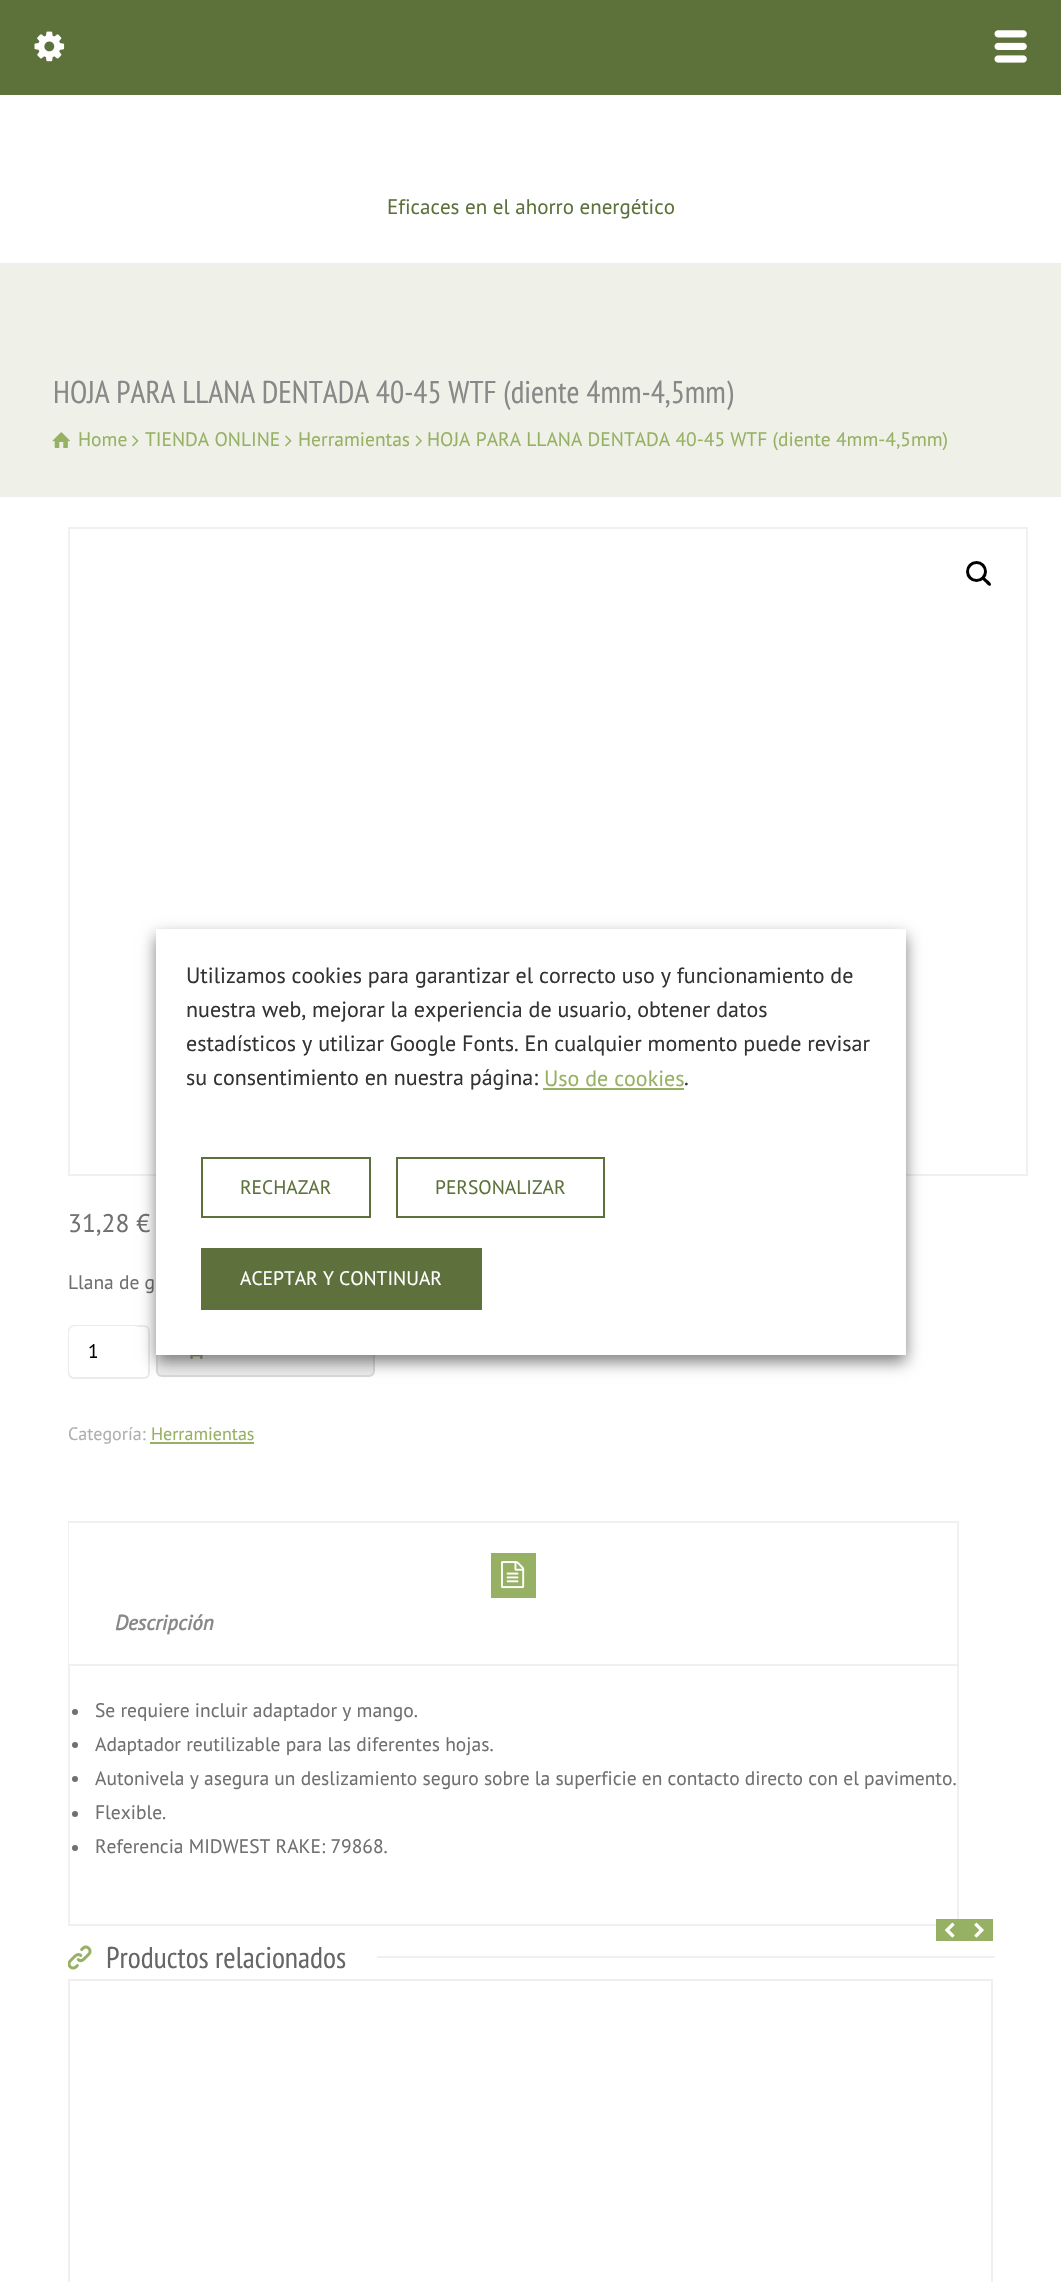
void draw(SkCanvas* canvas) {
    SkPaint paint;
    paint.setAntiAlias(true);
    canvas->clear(0xFFFFFFFF);
    paint.setColor(0xFF5D713B);
    canvas->drawRect(SkRect::MakeXYWH(0, 0, 1061, 95), paint);
    canvas->drawImageRect(SkImages::DeferredFromEncodedData(SkData::MakeFromFileName("img1.png")), SkRect::MakeXYWH(34, 31, 31, 31), SkSamplingOptions());
    canvas->drawImageRect(SkImages::DeferredFromEncodedData(SkData::MakeFromFileName("img2.png")), SkRect::MakeXYWH(994, 30, 33, 33), SkSamplingOptions());
    SkFont font1(fontMgr->matchFamilyStyle("PT Sans", SkFontStyle::Normal()), 21);
    font1.setSubpixel(true);
    canvas->drawString("Eficaces en el ahorro energético", 387, 214, font1, paint);
    paint.setColor(0xFFEFF1E9);
    canvas->drawRect(SkRect::MakeXYWH(0, 265, 1061, 230), paint);
    paint.setColor(0xFFEEEEEE);
    canvas->drawRect(SkRect::MakeXYWH(0, 263, 1061, 2), paint);
    canvas->drawRect(SkRect::MakeXYWH(0, 495, 1061, 2), paint);
    SkFont font2(fontMgr->matchFamilyStyle("PT Sans Narrow", SkFontStyle::Normal()), 31.5f);
    font2.setSubpixel(true);
    paint.setColor(0xFF888888);
    canvas->drawString("HOJA PARA LLANA DENTADA 40-45 WTF (diente 4mm-4,5mm)", 53, 403, font2, paint);
    canvas->drawImageRect(SkImages::DeferredFromEncodedData(SkData::MakeFromFileName("img3.png")), SkRect::MakeXYWH(52, 432, 18, 16), SkSamplingOptions());
    SkFont font3(fontMgr->matchFamilyStyle("PT Sans", SkFontStyle::Normal()), 19.5f);
    font3.setSubpixel(true);
    paint.setColor(0xFF97B164);
    canvas->drawString("Home", 78, 446, font3, paint);
    canvas->drawImageRect(SkImages::DeferredFromEncodedData(SkData::MakeFromFileName("img4.png")), SkRect::MakeXYWH(132, 435, 7, 12), SkSamplingOptions());
    canvas->drawString("TIENDA ONLINE", 145, 446, font3, paint);
    canvas->drawImageRect(SkImages::DeferredFromEncodedData(SkData::MakeFromFileName("img4.png")), SkRect::MakeXYWH(285, 435, 7, 12), SkSamplingOptions());
    canvas->drawString("Herramientas", 298, 446, font3, paint);
    canvas->drawImageRect(SkImages::DeferredFromEncodedData(SkData::MakeFromFileName("img5.png")), SkRect::MakeXYWH(415, 435, 7, 12), SkSamplingOptions());
    canvas->drawString("HOJA PARA LLANA DENTADA 40-45 WTF (diente 4mm-4,5mm)", 427, 446, font3, paint);
    paint.setStyle(SkPaint::kStroke_Style);
    paint.setStrokeWidth(2);
    paint.setColor(0xFFF0F0F0);
    canvas->drawRect(SkRect::MakeXYWH(69, 528, 958, 647), paint);
    paint.setStrokeWidth(3);
    paint.setColor(0xFF000000);
    canvas->drawCircle(976.5f, 571.5f, 9, paint);
    paint.setStyle(SkPaint::kFill_Style);
    canvas->drawPath(SkPathBuilder().moveTo(982, 577).cubicTo(984, 575.5f, 986.5f, 579.5f, 987.5f, 580).cubicTo(988.5f, 581, 992.5f, 584, 990.5f, 585.5f).cubicTo(989, 587, 986, 583, 985.5f, 582.5f).cubicTo(984.5f, 581.5f, 980.5f, 578.5f, 982, 577).close().detach(), paint);
    SkFont font4(fontMgr->matchFamilyStyle("PT Sans", SkFontStyle::Normal()), 25.5f);
    font4.setSubpixel(true);
    paint.setColor(0xFF707070);
    canvas->drawString("31,28 €", 68, 1232, font4, paint);
    canvas->drawString("Llana de g", 68, 1289, font3, paint);
    paint.setStyle(SkPaint::kStroke_Style);
    paint.setStrokeWidth(2);
    paint.setColor(0xFFEBEBEB);
    canvas->drawRoundRect(SkRect::MakeXYWH(69, 1326, 80, 52), 5, 5, paint);
    paint.setStyle(SkPaint::kFill_Style);
    paint.setColor(0xFFFFFFFF);
    canvas->drawRoundRect(SkRect::MakeXYWH(69, 1326, 72, 51), 6, 6, paint);
    paint.setColor(0xFF000000);
    canvas->drawString("1", 88, 1358, font3, paint);
    {
        const SkColor colors[] = {0xFFFFFFFF, 0xFFEBEBEB};
        const float stops[] = {0, 1};
        const SkPoint ends[] = {{266, 1325}, {266, 1377}};
        paint.setShader(SkGradientShader::MakeLinear(ends, colors, stops, 2, SkTileMode::kClamp));
        paint.setAlpha(255);
    }
    canvas->drawRoundRect(SkRect::MakeXYWH(156, 1325, 219, 52), 6, 6, paint);
    paint.setStyle(SkPaint::kStroke_Style);
    paint.setShader(nullptr);
    paint.setColor(0x14000000);
    canvas->drawRoundRect(SkRect::MakeXYWH(157, 1326, 217, 50), 5, 5, paint);
    canvas->drawImageRect(SkImages::DeferredFromEncodedData(SkData::MakeFromFileName("img6.png")), SkRect::MakeXYWH(190, 1355, 13, 4), SkSamplingOptions());
    SkFont font5(fontMgr->matchFamilyStyle("PT Sans", SkFontStyle::Normal()), 18);
    font5.setSubpixel(true);
    paint.setStyle(SkPaint::kFill_Style);
    paint.setColor(0xFFAFAFAF);
    canvas->drawString("Categoría:", 68, 1440, font5, paint);
    paint.setColor(0xFF97B164);
    canvas->drawString("Herramientas", 151, 1440, font5, paint);
    canvas->drawRect(SkRect::MakeXYWH(150, 1442, 104, 2), paint);
    paint.setStyle(SkPaint::kStroke_Style);
    paint.setColor(0xFFF0F0F0);
    canvas->drawRect(SkRect::MakeXYWH(69, 1522, 889, 403), paint);
    paint.setStyle(SkPaint::kFill_Style);
    paint.setColor(0xFFFFFFFF);
    canvas->drawRect(SkRect::MakeXYWH(69, 1523, 1, 141), paint);
    paint.setColor(0xFFF0F0F0);
    canvas->drawRect(SkRect::MakeXYWH(69, 1664, 888, 2), paint);
    paint.setColor(0xFF97B164);
    canvas->drawRect(SkRect::MakeXYWH(491, 1553, 45, 45), paint);
    canvas->drawImageRect(SkImages::DeferredFromEncodedData(SkData::MakeFromFileName("img7.png")), SkRect::MakeXYWH(501, 1561, 24, 28), SkSamplingOptions());
    SkFont font6(fontMgr->matchFamilyStyle("PT Sans", SkFontStyle::BoldItalic()), 21);
    font6.setSubpixel(true);
    paint.setColor(0xFF888888);
    canvas->drawString("Descripción", 115, 1630, font6, paint);
    paint.setColor(0xFF707070);
    canvas->drawCircle(75, 1712, 3, paint);
    canvas->drawString("Se requiere incluir adaptador y mango.", 95, 1717, font3, paint);
    canvas->drawCircle(75, 1745, 3, paint);
    canvas->drawString("Adaptador reutilizable para las diferentes hojas.", 95, 1751, font3, paint);
    canvas->drawCircle(75, 1779, 3, paint);
    canvas->drawString("Autonivela y asegura un deslizamiento seguro sobre la superficie en contacto directo con el pavimento.", 95, 1785, font3, paint);
    canvas->drawCircle(75, 1814, 3, paint);
    canvas->drawString("Flexible.", 95, 1819, font3, paint);
    canvas->drawCircle(75, 1848, 3, paint);
    canvas->drawString("Referencia MIDWEST RAKE: 79868.", 95, 1853, font3, paint);
    paint.setColor(0xFF97B164);
    canvas->drawRect(SkRect::MakeXYWH(936, 1919, 57, 22), paint);
    canvas->drawImageRect(SkImages::DeferredFromEncodedData(SkData::MakeFromFileName("img8.png")), SkRect::MakeXYWH(945, 1922, 10, 16), SkSamplingOptions());
    canvas->drawImageRect(SkImages::DeferredFromEncodedData(SkData::MakeFromFileName("img9.png")), SkRect::MakeXYWH(974, 1922, 10, 16), SkSamplingOptions());
    paint.setStyle(SkPaint::kStroke_Style);
    paint.setColor(0xFFEFEFEF);
    canvas->drawRect(SkRect::MakeXYWH(69, 1980, 923, 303), paint);
    canvas->drawImageRect(SkImages::DeferredFromEncodedData(SkData::MakeFromFileName("img10.png")), SkRect::MakeXYWH(68, 1945, 24, 25), SkSamplingOptions());
    SkFont font7(fontMgr->matchFamilyStyle("PT Sans Narrow", SkFontStyle::Normal()), 30);
    font7.setSubpixel(true);
    paint.setStyle(SkPaint::kFill_Style);
    paint.setColor(0xFF666666);
    canvas->drawString("Productos relacionados", 106, 1968, font7, paint);
    paint.setColor(0xFFF0F0F0);
    canvas->drawRect(SkRect::MakeXYWH(377, 1956, 618, 2), paint);
    paint.setColor(0x80000000);
    paint.setMaskFilter(SkMaskFilter::MakeBlur(kNormal_SkBlurStyle, 7.5f));
    canvas->drawRect(SkRect::MakeXYWH(156, 936, 750, 426), paint);
    paint.setMaskFilter(nullptr);
    paint.setColor(0xFFFFFFFF);
    canvas->drawRect(SkRect::MakeXYWH(156, 929, 750, 426), paint);
    SkFont font8(fontMgr->matchFamilyStyle("PT Sans", SkFontStyle::Normal()), 22);
    font8.setSubpixel(true);
    paint.setColor(0xFF333333);
    canvas->drawString("Utilizamos cookies para garantizar el correcto uso y funcionamiento de", 186, 983, font8, paint);
    canvas->drawString("nuestra web, mejorar la experiencia de usuario, obtener datos", 186, 1017, font8, paint);
    canvas->drawString("estadísticos y utilizar Google Fonts. En cualquier momento puede revisar", 186, 1051, font8, paint);
    canvas->drawString("su consentimiento en nuestra página:", 186, 1085, font8, paint);
    paint.setColor(0xFF97B164);
    canvas->drawString("Uso de cookies", 544, 1086, font8, paint);
    canvas->drawRect(SkRect::MakeXYWH(543, 1088, 141, 2), paint);
    paint.setColor(0xFF333333);
    canvas->drawString(".", 684, 1085, font8, paint);
    paint.setStyle(SkPaint::kStroke_Style);
    paint.setColor(0xFF5E713C);
    canvas->drawRect(SkRect::MakeXYWH(202, 1158, 168, 59), paint);
    paint.setStyle(SkPaint::kFill_Style);
    paint.setColor(0xFF5D713B);
    canvas->drawString("RECHAZAR", 240, 1194, font3, paint);
    paint.setStyle(SkPaint::kStroke_Style);
    paint.setColor(0xFF5E713C);
    canvas->drawRect(SkRect::MakeXYWH(397, 1158, 207, 59), paint);
    paint.setStyle(SkPaint::kFill_Style);
    paint.setColor(0xFF5D713B);
    canvas->drawString("PERSONALIZAR", 435, 1194, font3, paint);
    paint.setColor(0xFF5E713C);
    canvas->drawRect(SkRect::MakeXYWH(201, 1248, 281, 62), paint);
    paint.setColor(0xFFFFFFFF);
    canvas->drawString("ACEPTAR Y CONTINUAR", 240, 1285, font3, paint);
}
